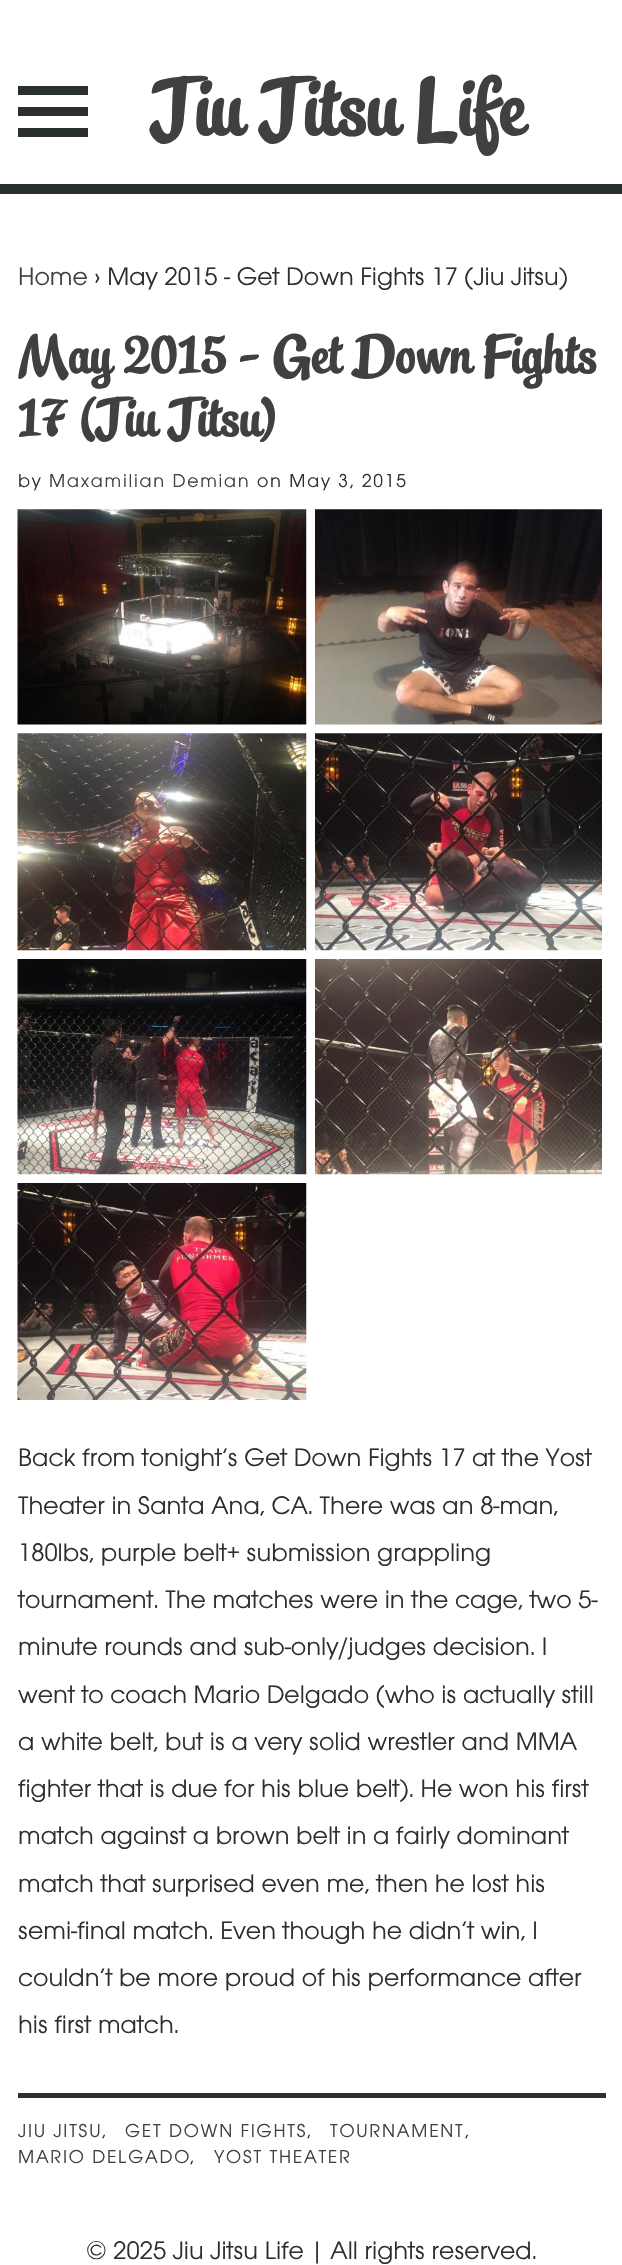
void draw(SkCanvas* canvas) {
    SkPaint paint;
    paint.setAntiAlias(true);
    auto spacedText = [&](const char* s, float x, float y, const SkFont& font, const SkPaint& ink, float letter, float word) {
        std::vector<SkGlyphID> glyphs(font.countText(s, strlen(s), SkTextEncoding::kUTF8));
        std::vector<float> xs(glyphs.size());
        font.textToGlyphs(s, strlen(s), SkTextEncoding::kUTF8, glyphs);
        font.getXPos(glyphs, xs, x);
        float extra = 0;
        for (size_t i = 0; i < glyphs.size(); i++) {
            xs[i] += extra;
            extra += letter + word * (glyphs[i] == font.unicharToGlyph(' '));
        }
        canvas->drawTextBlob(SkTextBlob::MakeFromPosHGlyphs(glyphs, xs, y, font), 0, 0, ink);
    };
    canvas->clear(0xFFFFFFFF);
    paint.setColor(0xFF2A3030);
    canvas->drawRect(SkRect::MakeXYWH(0, 184, 622, 10), paint);
    canvas->drawRect(SkRect::MakeXYWH(18, 86, 70, 9), paint);
    canvas->drawRect(SkRect::MakeXYWH(18, 107, 70, 9), paint);
    canvas->drawRect(SkRect::MakeXYWH(18, 128, 70, 9), paint);
    SkFont font1(fontMgr->matchFamilyStyle("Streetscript", SkFontStyle::Normal()), 78.75f);
    font1.setSubpixel(true);
    paint.setColor(0xFF404040);
    canvas->drawString("Jiu Jitsu Life", 152, 135, font1, paint);
    SkFont font2(fontMgr->matchFamilyStyle("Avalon", SkFontStyle::Normal()), 26.25f);
    font2.setSubpixel(true);
    canvas->drawString("Home", 18, 285, font2, paint);
    paint.setColor(0xFF2A3030);
    canvas->drawString("› May 2015 - Get Down Fights 17 (Jiu Jitsu)", 94, 285, font2, paint);
    SkFont font3(fontMgr->matchFamilyStyle("Streetscript", SkFontStyle::Normal()), 52.5f);
    font3.setSubpixel(true);
    paint.setColor(0xFF404040);
    canvas->drawString("May 2015 - Get Down Fights", 18, 373, font3, paint);
    canvas->drawString("17 (Jiu Jitsu)", 18, 436, font3, paint);
    SkFont font4(fontMgr->matchFamilyStyle("Avalon", SkFontStyle::Normal()), 19.25f);
    font4.setSubpixel(true);
    paint.setColor(0xFF2A3030);
    spacedText("by", 18, 487, font4, paint, 1.75f, 0);
    paint.setColor(0xFF404040);
    spacedText("Maxamilian Demian", 49, 487, font4, paint, 1.75f, 0);
    paint.setColor(0xFF2A3030);
    spacedText("on May 3, 2015", 257, 487, font4, paint, 1.75f, 0);
    canvas->drawRect(SkRect::MakeXYWH(18, 2093, 588, 5), paint);
    canvas->drawImageRect(SkImages::DeferredFromEncodedData(SkData::MakeFromFileName("img1.png")), SkRect::MakeXYWH(17, 509, 290, 216), SkSamplingOptions());
    canvas->drawImageRect(SkImages::DeferredFromEncodedData(SkData::MakeFromFileName("img2.png")), SkRect::MakeXYWH(315, 509, 287, 216), SkSamplingOptions());
    canvas->drawImageRect(SkImages::DeferredFromEncodedData(SkData::MakeFromFileName("img3.png")), SkRect::MakeXYWH(17, 733, 290, 218), SkSamplingOptions());
    canvas->drawImageRect(SkImages::DeferredFromEncodedData(SkData::MakeFromFileName("img4.png")), SkRect::MakeXYWH(315, 733, 287, 218), SkSamplingOptions());
    canvas->drawImageRect(SkImages::DeferredFromEncodedData(SkData::MakeFromFileName("img5.png")), SkRect::MakeXYWH(17, 959, 290, 216), SkSamplingOptions());
    canvas->drawImageRect(SkImages::DeferredFromEncodedData(SkData::MakeFromFileName("img6.png")), SkRect::MakeXYWH(315, 959, 287, 216), SkSamplingOptions());
    canvas->drawImageRect(SkImages::DeferredFromEncodedData(SkData::MakeFromFileName("img7.png")), SkRect::MakeXYWH(17, 1183, 290, 217), SkSamplingOptions());
    canvas->drawString("Back from tonight’s Get Down Fights 17 at the Yost", 18, 1466, font2, paint);
    canvas->drawString("Theater in Santa Ana, CA. There was an 8-man,", 18, 1514, font2, paint);
    canvas->drawString("180lbs, purple belt+ submission grappling", 18, 1561, font2, paint);
    canvas->drawString("tournament. The matches were in the cage, two 5-", 18, 1608, font2, paint);
    canvas->drawString("minute rounds and sub-only/judges decision. I", 18, 1655, font2, paint);
    canvas->drawString("went to coach Mario Delgado (who is actually still", 18, 1703, font2, paint);
    canvas->drawString("a white belt, but is a very solid wrestler and MMA", 18, 1750, font2, paint);
    canvas->drawString("fighter that is due for his blue belt). He won his first", 18, 1797, font2, paint);
    canvas->drawString("match against a brown belt in a fairly dominant", 18, 1844, font2, paint);
    canvas->drawString("match that surprised even me, then he lost his", 18, 1892, font2, paint);
    canvas->drawString("semi-final match. Even though he didn’t win, I", 18, 1939, font2, paint);
    canvas->drawString("couldn’t be more proud of his performance after", 18, 1986, font2, paint);
    canvas->drawString("his first match.", 18, 2033, font2, paint);
    paint.setColor(0xFF404040);
    spacedText("JIU JITSU", 18, 2137, font4, paint, 1.75f, 0);
    paint.setColor(0xFF2A3030);
    spacedText(",", 102, 2137, font4, paint, 1.75f, 0);
    paint.setColor(0xFF404040);
    spacedText("GET DOWN FIGHTS", 125, 2137, font4, paint, 1.75f, 0);
    paint.setColor(0xFF2A3030);
    spacedText(",", 307, 2137, font4, paint, 1.75f, 0);
    paint.setColor(0xFF404040);
    spacedText("TOURNAMENT", 330, 2137, font4, paint, 1.75f, 0);
    paint.setColor(0xFF2A3030);
    spacedText(",", 465, 2137, font4, paint, 1.75f, 0);
    paint.setColor(0xFF404040);
    spacedText("MARIO DELGADO", 18, 2163, font4, paint, 1.75f, 0);
    paint.setColor(0xFF2A3030);
    spacedText(",", 190, 2163, font4, paint, 1.75f, 0);
    paint.setColor(0xFF404040);
    spacedText("YOST THEATER", 214, 2163, font4, paint, 1.75f, 0);
    paint.setColor(0xFF2A3030);
    canvas->drawString("© 2025 Jiu Jitsu Life | All rights reserved.", 86, 2259, font2, paint);
}
